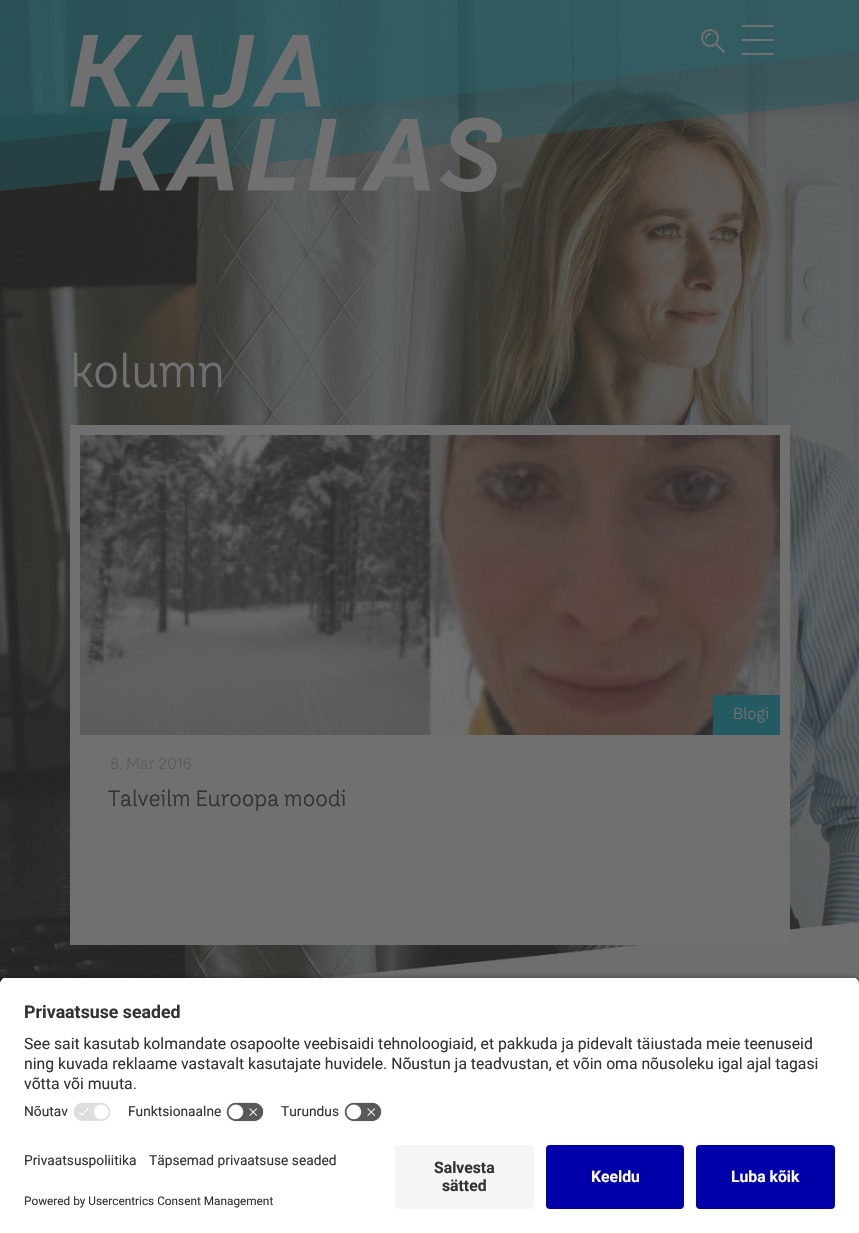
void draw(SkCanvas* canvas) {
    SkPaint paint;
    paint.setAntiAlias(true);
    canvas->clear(0xFFFFFFFF);
    paint.setColor(0xFF6E6E6E);
    canvas->drawPath(SkPathBuilder().moveTo(0, 90).lineTo(859, 0).lineTo(859, 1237).lineTo(0, 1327).close().detach(), paint);
    canvas->drawImageRect(SkImages::DeferredFromEncodedData(SkData::MakeFromFileName("img1.png")), SkRect::MakeXYWH(0, 0, 859, 985), SkSamplingOptions());
    canvas->save();
    canvas->clipPath(SkPathBuilder(SkPathFillType::kEvenOdd).moveTo(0, 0).lineTo(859, 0).lineTo(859, 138).lineTo(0, 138).close().moveTo(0, -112.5f).lineTo(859, -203).lineTo(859, 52).lineTo(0, 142.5f).close().detach(), true);
    paint.setColor(0x42242424);
    paint.setMaskFilter(SkMaskFilter::MakeBlur(kNormal_SkBlurStyle, 10));
    canvas->drawRect(SkRect::MakeXYWH(10, -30, 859, 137), paint);
    paint.setMaskFilter(nullptr);
    canvas->restore();
    paint.setColor(0x80245A62);
    canvas->drawPath(SkPathBuilder().moveTo(0, -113).lineTo(859, -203).lineTo(859, 52).lineTo(0, 142).close().detach(), paint);
    canvas->drawPath(SkPathBuilder().moveTo(0, -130).lineTo(859, -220).lineTo(859, 101).lineTo(0, 191).close().detach(), paint);
    canvas->drawImageRect(SkImages::DeferredFromEncodedData(SkData::MakeFromFileName("img2.png")), SkRect::MakeXYWH(70, 35, 432, 157), SkSamplingOptions());
    canvas->drawImageRect(SkImages::DeferredFromEncodedData(SkData::MakeFromFileName("img3.png")), SkRect::MakeXYWH(701, 29, 24, 24), SkSamplingOptions());
    paint.setColor(0xFF707070);
    canvas->drawRect(SkRect::MakeXYWH(742, 39, 32, 2), paint);
    canvas->drawRect(SkRect::MakeXYWH(742, 25, 32, 2), paint);
    canvas->drawRect(SkRect::MakeXYWH(742, 53, 32, 2), paint);
    SkFont font1(fontMgr->matchFamilyStyle("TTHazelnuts", SkFontStyle::Normal()), 46);
    font1.setSubpixel(true);
    canvas->drawString("kolumn", 70, 387, font1, paint);
    canvas->drawRect(SkRect::MakeXYWH(70, 425, 720, 520), paint);
    canvas->drawImageRect(SkImages::DeferredFromEncodedData(SkData::MakeFromFileName("img4.png")), SkRect::MakeXYWH(80, 435, 700, 300), SkSamplingOptions());
    paint.setColor(0xFF245A62);
    canvas->drawRect(SkRect::MakeXYWH(713, 695, 67, 40), paint);
    SkFont font2(fontMgr->matchFamilyStyle("TTHazelnuts", SkFontStyle::Normal()), 16);
    font2.setSubpixel(true);
    paint.setColor(0xFF707070);
    canvas->drawString("Blogi", 733, 719, font2, paint);
    paint.setColor(0xFF5B5C5C);
    canvas->drawString("8. Mar 2016", 110, 769, font2, paint);
    SkFont font3(fontMgr->matchFamilyStyle("TTHazelnuts", SkFontStyle::Normal()), 22);
    font3.setSubpixel(true);
    paint.setColor(0xFF333333);
    canvas->drawString("Talveilm Euroopa moodi", 108, 806, font3, paint);
    paint.setColor(0xCC000000);
    paint.setMaskFilter(SkMaskFilter::MakeBlur(kNormal_SkBlurStyle, 3.5f));
    canvas->drawRoundRect(SkRect::MakeXYWH(0, 980, 859, 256), 8, 8, paint);
    paint.setMaskFilter(nullptr);
    canvas->save();
    canvas->clipPath(SkPathBuilder().moveTo(8, 977).lineTo(851, 977).cubicTo(855.5f, 977, 859, 980.5f, 859, 985).lineTo(859, 1137).lineTo(0, 1137).lineTo(0, 985).cubicTo(0, 980.5f, 3.5f, 977, 8, 977).close().detach(), true);
    paint.setColor(0xFFFFFFFF);
    canvas->drawRect(SkRect::MakeXYWH(0, 978, 859, 159), paint);
    canvas->drawRect(SkRect::MakeXYWH(0, 978, 859, 119), paint);
    canvas->restore();
    SkFont font4(fontMgr->matchFamilyStyle("Roboto", SkFontStyle::Bold()), 17.75f);
    font4.setSubpixel(true);
    paint.setColor(0xFF333333);
    canvas->drawString("Privaatsuse seaded", 24, 1018, font4, paint);
    SkFont font5(fontMgr->matchFamilyStyle("Roboto", SkFontStyle::Normal()), 15.75f);
    font5.setSubpixel(true);
    canvas->drawString("See sait kasutab kolmandate osapoolte veebisaidi tehnoloogiaid, et pakkuda ja pidevalt täiustada meie teenuseid", 24, 1049, font5, paint);
    canvas->drawString("ning kuvada reklaame vastavalt kasutajate huvidele. Nõustun ja teadvustan, et võin oma nõusoleku igal ajal tagasi", 24, 1069, font5, paint);
    canvas->drawString("võtta või muuta.", 24, 1089, font5, paint);
    SkFont font6(fontMgr->matchFamilyStyle("Roboto", SkFontStyle::Normal()), 13.75f);
    font6.setSubpixel(true);
    canvas->drawString("Nõutav", 24, 1116, font6, paint);
    canvas->drawImageRect(SkImages::DeferredFromEncodedData(SkData::MakeFromFileName("img5.png")), SkRect::MakeXYWH(73, 1102, 38, 19), SkSamplingOptions());
    canvas->drawString("Funktsionaalne", 128, 1116, font6, paint);
    canvas->drawImageRect(SkImages::DeferredFromEncodedData(SkData::MakeFromFileName("img6.png")), SkRect::MakeXYWH(226, 1102, 38, 20), SkSamplingOptions());
    canvas->drawString("Turundus", 281, 1116, font6, paint);
    canvas->drawImageRect(SkImages::DeferredFromEncodedData(SkData::MakeFromFileName("img6.png")), SkRect::MakeXYWH(344, 1102, 38, 20), SkSamplingOptions());
    paint.setColor(0xFFFFFFFF);
    canvas->drawRect(SkRect::MakeXYWH(0, 1137, 859, 96), paint);
    paint.setColor(0xFF333333);
    canvas->drawString("Privaatsuspoliitika", 24, 1165, font6, paint);
    canvas->drawString("Täpsemad privaatsuse seaded", 149, 1165, font6, paint);
    SkFont font7(fontMgr->matchFamilyStyle("Roboto", SkFontStyle::Normal()), 11.8f);
    font7.setSubpixel(true);
    canvas->drawString("Powered by Usercentrics Consent Management", 24, 1205, font7, paint);
    paint.setColor(0xFFF5F5F5);
    canvas->drawRoundRect(SkRect::MakeXYWH(395, 1145, 139, 64), 4, 4, paint);
    SkFont font8(fontMgr->matchFamilyStyle("Roboto", SkFontStyle::Bold()), 15.75f);
    font8.setSubpixel(true);
    paint.setColor(0xFF333333);
    canvas->drawString("Salvesta", 434, 1173, font8, paint);
    canvas->drawString("sätted", 442, 1191, font8, paint);
    paint.setColor(0xFF0000AA);
    canvas->drawRoundRect(SkRect::MakeXYWH(546, 1145, 138, 64), 4, 4, paint);
    paint.setColor(0xFFFAFAFA);
    canvas->drawString("Keeldu", 591, 1182, font8, paint);
    paint.setColor(0xFF0000AA);
    canvas->drawRoundRect(SkRect::MakeXYWH(696, 1145, 139, 64), 4, 4, paint);
    paint.setColor(0xFFFAFAFA);
    canvas->drawString("Luba kõik", 731, 1182, font8, paint);
}
